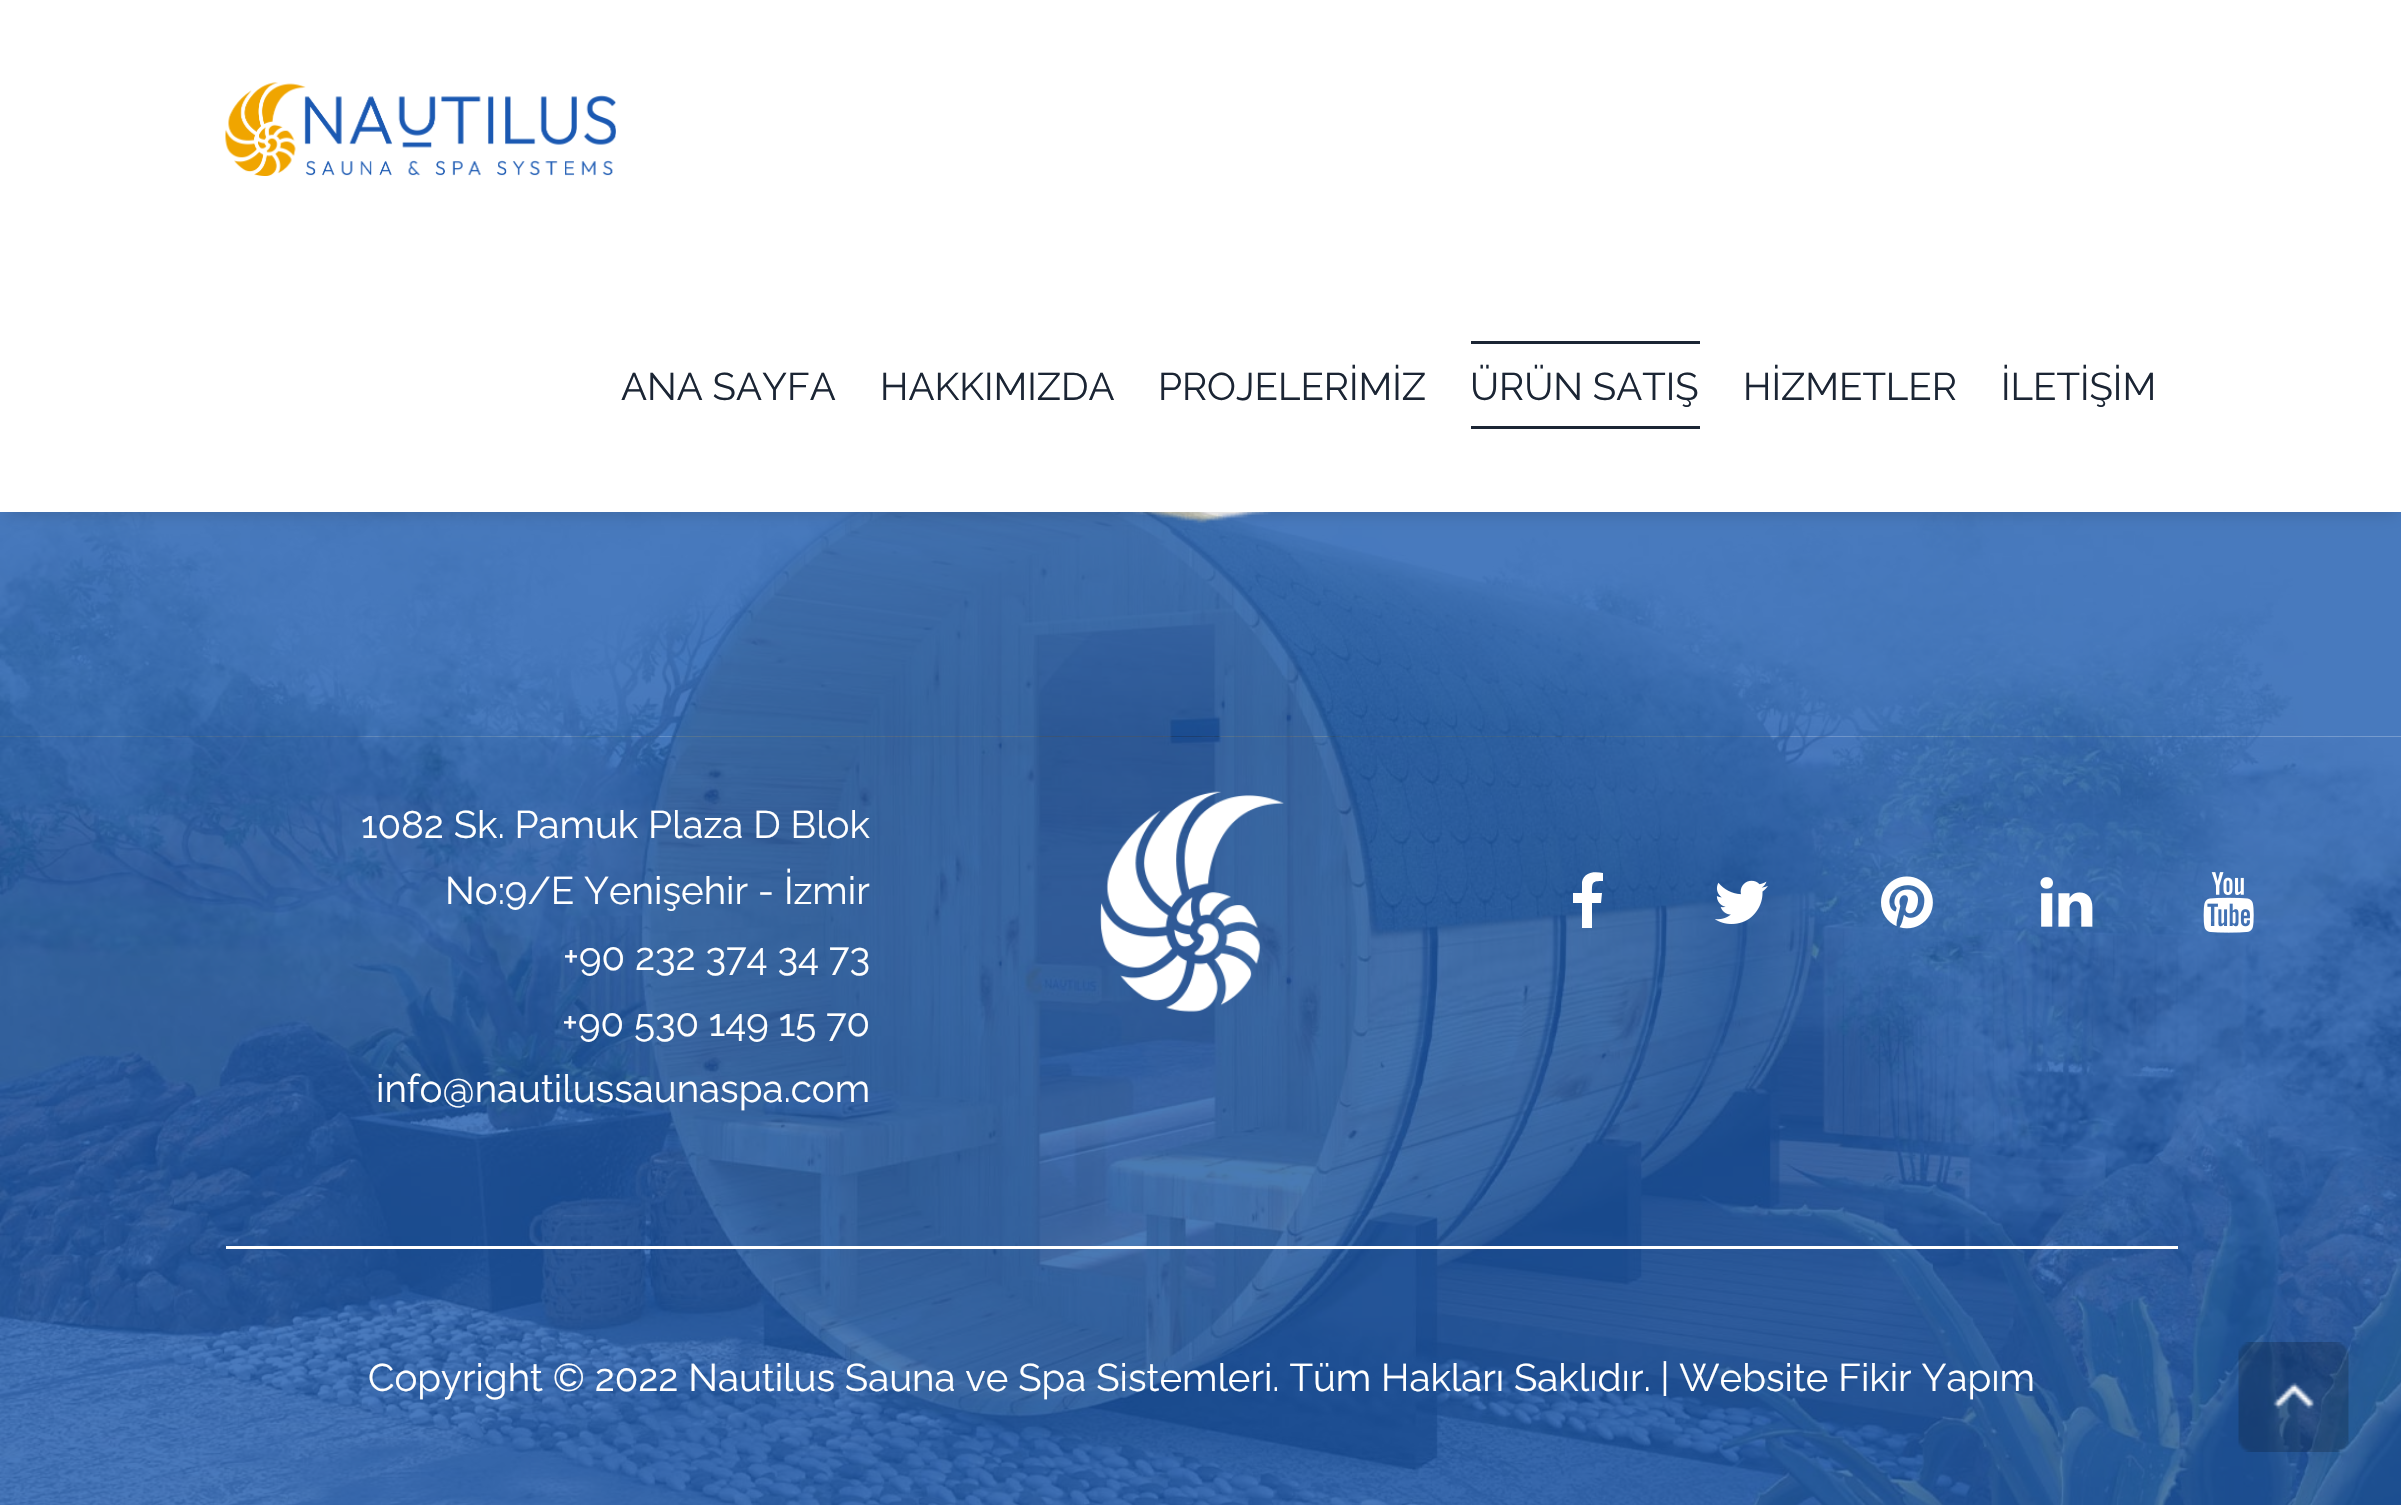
void draw(SkCanvas* canvas) {
    SkPaint paint;
    paint.setAntiAlias(true);
    canvas->clear(0xFFFFFFFF);
    canvas->drawImageRect(SkImages::DeferredFromEncodedData(SkData::MakeFromFileName("img2.png")), SkRect::MakeXYWH(0, 512, 2401, 993), SkSamplingOptions());
    canvas->drawImageRect(SkImages::DeferredFromEncodedData(SkData::MakeFromFileName("img3.png")), SkRect::MakeXYWH(0, 512, 2401, 225), SkSamplingOptions());
    canvas->save();
    canvas->clipPath(SkPathBuilder(SkPathFillType::kEvenOdd).moveTo(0, 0).lineTo(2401, 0).lineTo(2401, 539).lineTo(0, 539).close().moveTo(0, 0).lineTo(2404, 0).lineTo(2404, 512).lineTo(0, 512).close().detach(), true);
    paint.setColor(0x26000000);
    paint.setMaskFilter(SkMaskFilter::MakeBlur(kNormal_SkBlurStyle, 8));
    canvas->drawRect(SkRect::MakeXYWH(6, 14, 2392, 500), paint);
    paint.setMaskFilter(nullptr);
    canvas->restore();
    paint.setColor(0xE6FFFFFF);
    canvas->drawRect(SkRect::MakeXYWH(0, 511, 2401, 1), paint);
    canvas->drawImageRect(SkImages::DeferredFromEncodedData(SkData::MakeFromFileName("img1.png")), SkRect::MakeXYWH(225, 82, 391, 94), SkSamplingOptions());
    SkFont font1(fontMgr->matchFamilyStyle("Raleway", SkFontStyle::Normal()), 38.5f);
    font1.setSubpixel(true);
    paint.setColor(0xFF1B2534);
    canvas->drawString("ANA SAYFA", 621, 400, font1, paint);
    canvas->drawString("HAKKIMIZDA", 880, 400, font1, paint);
    canvas->drawString("PROJELERİMİZ", 1158, 400, font1, paint);
    canvas->drawRect(SkRect::MakeXYWH(1471, 341, 229, 3), paint);
    canvas->drawRect(SkRect::MakeXYWH(1471, 426, 229, 3), paint);
    canvas->drawString("ÜRÜN SATIŞ", 1470, 400, font1, paint);
    canvas->drawString("HİZMETLER", 1743, 400, font1, paint);
    canvas->drawString("İLETİŞİM", 2001, 400, font1, paint);
    paint.setColor(0xCC1B59AE);
    canvas->drawRect(SkRect::MakeXYWH(0, 737, 2401, 768), paint);
    paint.setColor(0xFFFFFFFF);
    canvas->drawString("1082 Sk. Pamuk Plaza D Blok", 361, 838, font1, paint);
    canvas->drawString("No:9/E Yenişehir - İzmir", 445, 904, font1, paint);
    canvas->drawString("+90 232 374 34 73", 563, 970, font1, paint);
    canvas->drawString("+90 530 149 15 70", 562, 1036, font1, paint);
    canvas->drawString("info@nautilussaunaspa.com", 376, 1102, font1, paint);
    canvas->drawImageRect(SkImages::DeferredFromEncodedData(SkData::MakeFromFileName("img4.png")), SkRect::MakeXYWH(1100, 791, 184, 221), SkSamplingOptions());
    canvas->drawPath(SkPathBuilder().moveTo(1603, 873).lineTo(1603, 881).cubicTo(1592, 881, 1592, 882, 1592, 893).lineTo(1602, 893).lineTo(1601, 903).lineTo(1592, 903).lineTo(1592, 928).lineTo(1582, 928).lineTo(1582, 903).lineTo(1573, 903).lineTo(1573, 893).lineTo(1582, 893).lineTo(1582, 882).cubicTo(1584, 872, 1594, 871, 1603, 873).close().detach(), paint);
    canvas->drawImageRect(SkImages::DeferredFromEncodedData(SkData::MakeFromFileName("img5.png")), SkRect::MakeXYWH(1715, 880, 53, 44), SkSamplingOptions());
    canvas->drawImageRect(SkImages::DeferredFromEncodedData(SkData::MakeFromFileName("img6.png")), SkRect::MakeXYWH(1881, 876, 52, 53), SkSamplingOptions());
    canvas->drawImageRect(SkImages::DeferredFromEncodedData(SkData::MakeFromFileName("img7.png")), SkRect::MakeXYWH(2040, 877, 53, 50), SkSamplingOptions());
    canvas->drawImageRect(SkImages::DeferredFromEncodedData(SkData::MakeFromFileName("img8.png")), SkRect::MakeXYWH(2203, 872, 51, 61), SkSamplingOptions());
    canvas->drawRect(SkRect::MakeXYWH(226, 1246, 1952, 3), paint);
    canvas->drawString("Copyright © 2022 Nautilus Sauna ve Spa Sistemleri. Tüm Hakları Saklıdır. | Website Fikir Yapım", 368, 1391, font1, paint);
    canvas->drawImageRect(SkImages::DeferredFromEncodedData(SkData::MakeFromFileName("img9.png")), SkRect::MakeXYWH(2238, 1342, 111, 110), SkSamplingOptions());
}
